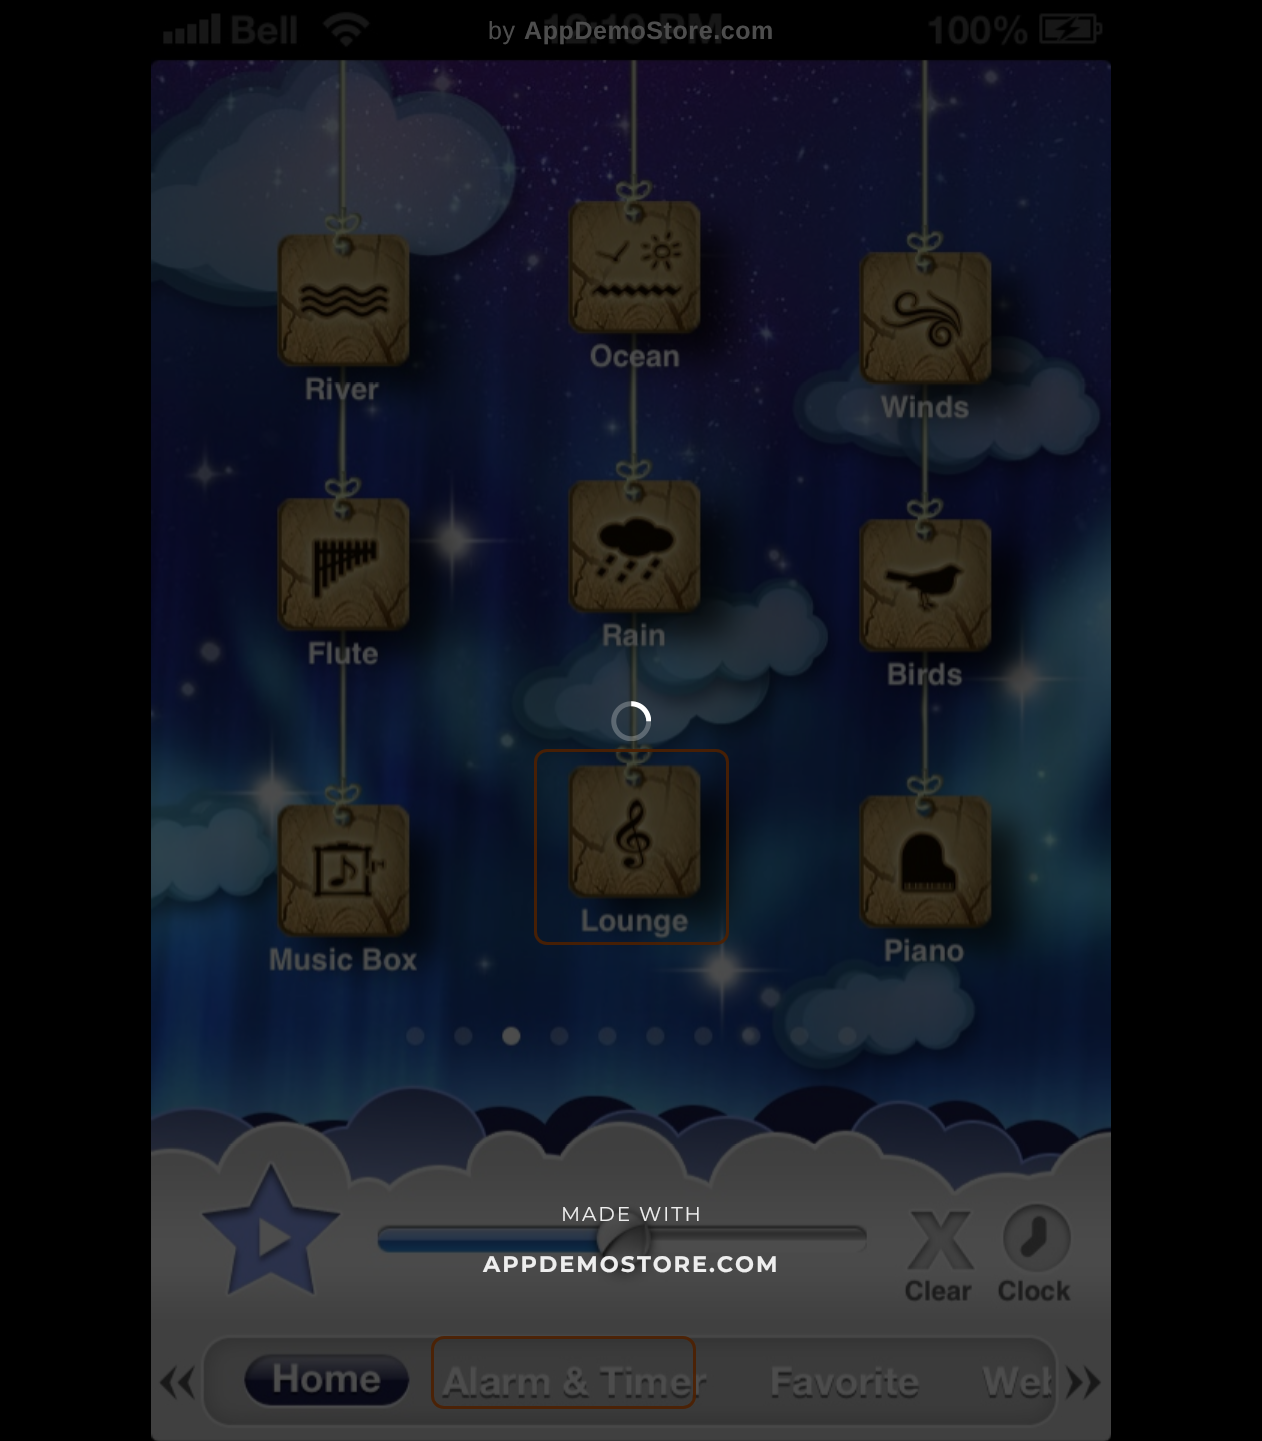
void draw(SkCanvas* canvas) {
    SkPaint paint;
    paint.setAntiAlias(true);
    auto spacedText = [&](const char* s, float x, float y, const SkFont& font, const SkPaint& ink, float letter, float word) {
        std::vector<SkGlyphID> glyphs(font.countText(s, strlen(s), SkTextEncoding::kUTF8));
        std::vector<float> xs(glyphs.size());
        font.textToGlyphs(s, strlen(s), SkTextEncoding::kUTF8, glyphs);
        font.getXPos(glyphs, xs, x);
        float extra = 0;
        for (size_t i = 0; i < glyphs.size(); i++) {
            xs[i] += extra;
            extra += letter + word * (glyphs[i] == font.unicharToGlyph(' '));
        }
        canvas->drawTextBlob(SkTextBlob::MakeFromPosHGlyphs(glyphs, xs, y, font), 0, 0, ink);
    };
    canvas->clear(0xFF000000);
    canvas->drawImageRect(SkImages::DeferredFromEncodedData(SkData::MakeFromFileName("img1.png")), SkRect::MakeXYWH(151, 0, 960, 1441), SkSamplingOptions());
    paint.setStyle(SkPaint::kStroke_Style);
    paint.setStrokeWidth(3);
    paint.setColor(0xE64D1F00);
    canvas->drawRoundRect(SkRect::MakeXYWH(535.5f, 750.5f, 192, 193), 11.5f, 11.5f, paint);
    canvas->drawRoundRect(SkRect::MakeXYWH(432.5f, 1337.5f, 262, 70), 11.5f, 11.5f, paint);
    paint.setStyle(SkPaint::kFill_Style);
    paint.setColor(0x99000000);
    canvas->drawRect(SkRect::MakeXYWH(154, 11, 953, 49), paint);
    SkFont font1(fontMgr->matchFamilyStyle("Liberation Sans", SkFontStyle::Normal()), 25);
    font1.setSubpixel(true);
    paint.setColor(0xFF4D4D4D);
    spacedText("by", 488, 39, font1, paint, 0.6f, 0);
    SkFont font2(fontMgr->matchFamilyStyle("Liberation Sans", SkFontStyle::Bold()), 25);
    font2.setSubpixel(true);
    spacedText("AppDemoStore.com", 524, 39, font2, paint, 0.6f, 0);
    canvas->drawImageRect(SkImages::DeferredFromEncodedData(SkData::MakeFromFileName("img2.png")), SkRect::MakeXYWH(611, 701, 40, 40), SkSamplingOptions());
    SkFont font3(fontMgr->matchFamilyStyle("Montserrat", SkFontStyle::Normal()), 20);
    font3.setSubpixel(true);
    paint.setColor(0xFFEEEEEE);
    spacedText("MADE WITH", 561, 1221, font3, paint, 1.9f, 0);
    SkFont font4(fontMgr->matchFamilyStyle("Montserrat", SkFontStyle::Bold()), 22.5f);
    font4.setSubpixel(true);
    spacedText("APPDEMOSTORE.COM", 483, 1272, font4, paint, 1.9f, 0);
}
